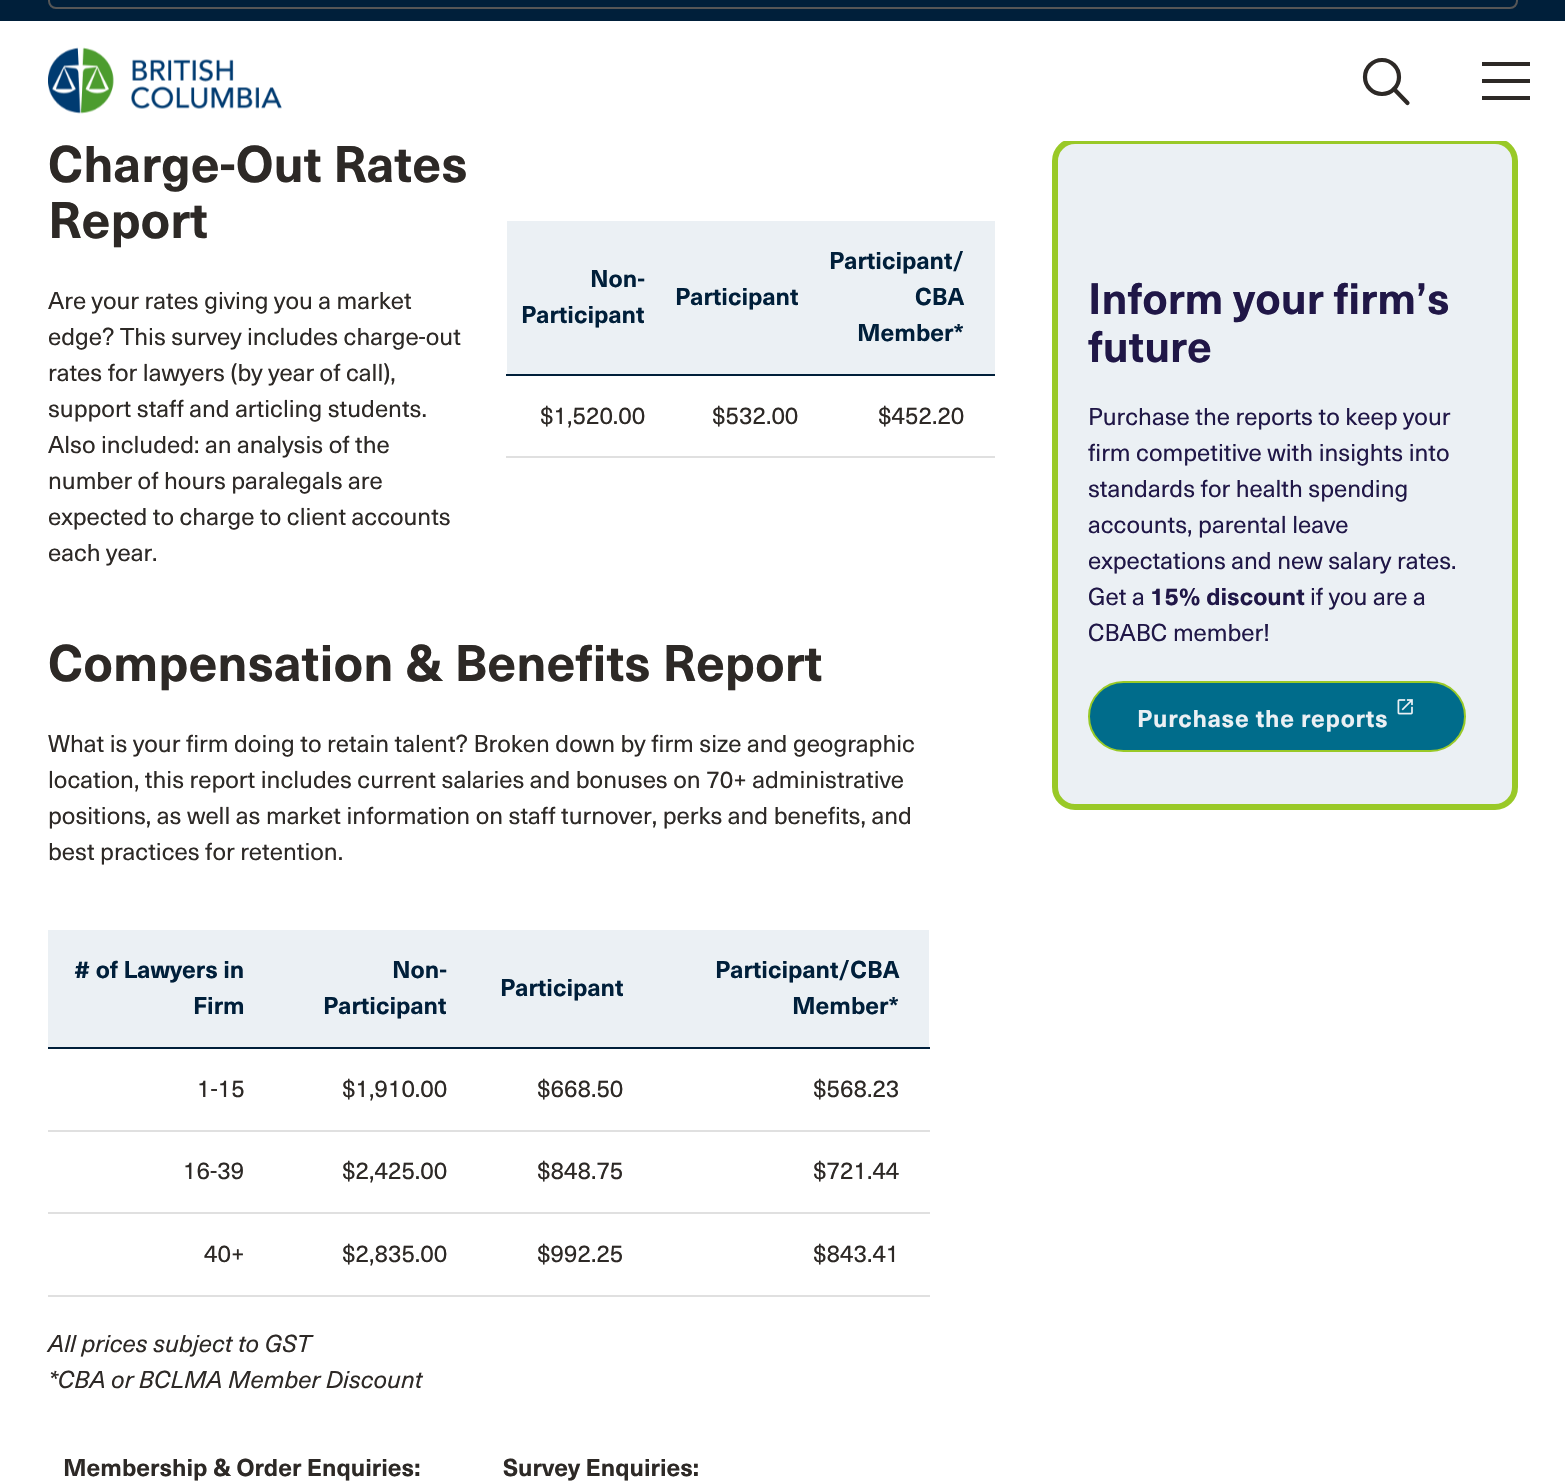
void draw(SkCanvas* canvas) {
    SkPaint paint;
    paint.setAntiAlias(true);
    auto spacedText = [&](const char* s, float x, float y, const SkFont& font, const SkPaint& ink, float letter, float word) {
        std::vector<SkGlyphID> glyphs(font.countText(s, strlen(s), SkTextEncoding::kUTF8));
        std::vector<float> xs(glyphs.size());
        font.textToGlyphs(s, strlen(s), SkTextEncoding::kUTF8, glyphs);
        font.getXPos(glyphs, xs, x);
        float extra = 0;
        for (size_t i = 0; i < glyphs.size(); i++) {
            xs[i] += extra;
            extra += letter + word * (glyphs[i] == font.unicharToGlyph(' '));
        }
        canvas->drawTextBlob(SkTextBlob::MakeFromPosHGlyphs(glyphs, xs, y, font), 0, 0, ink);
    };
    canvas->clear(0xFFFFFFFF);
    paint.setColor(0xFF001F3A);
    canvas->drawRect(SkRect::MakeXYWH(0, 0, 1565, 21), paint);
    paint.setStyle(SkPaint::kStroke_Style);
    paint.setStrokeWidth(2);
    paint.setColor(0xFF565656);
    canvas->drawRoundRect(SkRect::MakeXYWH(49, -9, 1468, 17), 7, 7, paint);
    paint.setStyle(SkPaint::kFill_Style);
    paint.setColor(0xFFEBF0F4);
    canvas->drawRoundRect(SkRect::MakeXYWH(1055, 141, 460, 666), 20, 20, paint);
    paint.setStyle(SkPaint::kStroke_Style);
    paint.setStrokeWidth(6);
    paint.setColor(0xFF99C927);
    canvas->drawRoundRect(SkRect::MakeXYWH(1055, 141, 460, 666), 20, 20, paint);
    paint.setStyle(SkPaint::kFill_Style);
    paint.setColor(0xFFFFFFFF);
    canvas->drawRect(SkRect::MakeXYWH(1063, 138, 444, 3), paint);
    canvas->drawImageRect(SkImages::DeferredFromEncodedData(SkData::MakeFromFileName("img1.png")), SkRect::MakeXYWH(48, 47, 234, 67), SkSamplingOptions());
    paint.setStyle(SkPaint::kStroke_Style);
    paint.setStrokeWidth(4.2f);
    paint.setColor(0xFF2D2926);
    canvas->drawCircle(1382, 77, 17, paint);
    paint.setStrokeCap(SkPaint::kRound_Cap);
    paint.setStrokeJoin(SkPaint::kRound_Join);
    canvas->drawPath(SkPathBuilder().moveTo(1407.5f, 103).lineTo(1394, 89).detach(), paint);
    paint.setStyle(SkPaint::kFill_Style);
    canvas->drawRect(SkRect::MakeXYWH(1482, 62, 48, 4), paint);
    canvas->drawRect(SkRect::MakeXYWH(1482, 79, 48, 4), paint);
    canvas->drawRect(SkRect::MakeXYWH(1482, 96, 48, 4), paint);
    SkFont font1(fontMgr->matchFamilyStyle("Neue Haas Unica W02", SkFontStyle::Bold()), 50.4f);
    font1.setSubpixel(true);
    canvas->drawString("Charge-Out Rates", 48, 182, font1, paint);
    canvas->drawString("Report", 48, 238, font1, paint);
    SkFont font2(fontMgr->matchFamilyStyle("Neue Haas Unica W02", SkFontStyle::Normal()), 24);
    font2.setSubpixel(true);
    canvas->drawString("Are your rates giving you a market", 48, 309, font2, paint);
    canvas->drawString("edge? This survey includes charge-out", 48, 345, font2, paint);
    canvas->drawString("rates for lawyers (by year of call),", 48, 381, font2, paint);
    canvas->drawString("support staff and articling students.", 48, 417, font2, paint);
    canvas->drawString("Also included: an analysis of the", 48, 453, font2, paint);
    canvas->drawString("number of hours paralegals are", 48, 489, font2, paint);
    canvas->drawString("expected to charge to client accounts", 48, 525, font2, paint);
    canvas->drawString("each year.", 48, 561, font2, paint);
    paint.setColor(0xFFEBF0F4);
    canvas->drawRect(SkRect::MakeXYWH(507, 221, 488, 153), paint);
    SkFont font3(fontMgr->matchFamilyStyle("Neue Haas Unica W02", SkFontStyle::Bold()), 24);
    font3.setSubpixel(true);
    paint.setColor(0xFF001F3A);
    canvas->drawString("Non-", 590, 287, font3, paint);
    canvas->drawString("Participant", 521, 323, font3, paint);
    canvas->drawString("Participant", 675, 305, font3, paint);
    canvas->drawRect(SkRect::MakeXYWH(506, 374, 489, 2), paint);
    canvas->drawString("Participant/", 829, 269, font3, paint);
    canvas->drawString("CBA", 915, 305, font3, paint);
    canvas->drawString("Member*", 857, 341, font3, paint);
    paint.setColor(0xFFE0E0E0);
    canvas->drawRect(SkRect::MakeXYWH(506, 456, 489, 2), paint);
    paint.setColor(0xFF2D2926);
    canvas->drawString("$1,520.00", 540, 424, font2, paint);
    canvas->drawString("$532.00", 712, 424, font2, paint);
    canvas->drawString("$452.20", 878, 424, font2, paint);
    canvas->drawString("Compensation & Benefits Report", 48, 681, font1, paint);
    canvas->drawString("What is your firm doing to retain talent? Broken down by firm size and geographic", 48, 752, font2, paint);
    canvas->drawString("location, this report includes current salaries and bonuses on 70+ administrative", 48, 788, font2, paint);
    canvas->drawString("positions, as well as market information on staff turnover, perks and benefits, and", 48, 824, font2, paint);
    canvas->drawString("best practices for retention.", 48, 860, font2, paint);
    paint.setColor(0xFFEBF0F4);
    canvas->drawRect(SkRect::MakeXYWH(48, 930, 881, 117), paint);
    paint.setColor(0xFF001F3A);
    canvas->drawString("# of Lawyers in", 74, 978, font3, paint);
    canvas->drawString("Firm", 193, 1014, font3, paint);
    canvas->drawString("Non-", 392, 978, font3, paint);
    canvas->drawString("Participant", 323, 1014, font3, paint);
    canvas->drawString("Participant", 500, 996, font3, paint);
    canvas->drawRect(SkRect::MakeXYWH(48, 1047, 882, 2), paint);
    canvas->drawString("Participant/CBA", 715, 978, font3, paint);
    canvas->drawString("Member*", 792, 1014, font3, paint);
    paint.setColor(0xFFE0E0E0);
    canvas->drawRect(SkRect::MakeXYWH(48, 1130, 882, 2), paint);
    paint.setColor(0xFF2D2926);
    canvas->drawString("1-15", 197, 1097, font2, paint);
    canvas->drawString("$1,910.00", 342, 1097, font2, paint);
    canvas->drawString("$668.50", 537, 1097, font2, paint);
    canvas->drawString("$568.23", 813, 1097, font2, paint);
    paint.setColor(0xFFE0E0E0);
    canvas->drawRect(SkRect::MakeXYWH(48, 1212, 882, 2), paint);
    paint.setColor(0xFF2D2926);
    canvas->drawString("16-39", 183, 1179, font2, paint);
    canvas->drawString("$2,425.00", 342, 1179, font2, paint);
    canvas->drawString("$848.75", 537, 1179, font2, paint);
    canvas->drawString("$721.44", 813, 1179, font2, paint);
    paint.setColor(0xFFE0E0E0);
    canvas->drawRect(SkRect::MakeXYWH(48, 1295, 882, 2), paint);
    paint.setColor(0xFF2D2926);
    canvas->drawString("40+", 204, 1262, font2, paint);
    canvas->drawString("$2,835.00", 342, 1262, font2, paint);
    canvas->drawString("$992.25", 537, 1262, font2, paint);
    canvas->drawString("$843.41", 813, 1262, font2, paint);
    SkFont font4(fontMgr->matchFamilyStyle("Neue Haas Unica W02", SkFontStyle::Italic()), 24);
    font4.setSubpixel(true);
    canvas->drawString("All prices subject to GST", 48, 1352, font4, paint);
    canvas->drawString("*CBA or BCLMA Member Discount", 48, 1388, font4, paint);
    canvas->drawString("Membership & Order Enquiries:", 63, 1476, font3, paint);
    canvas->drawString("Survey Enquiries:", 503, 1476, font3, paint);
    SkFont font5(fontMgr->matchFamilyStyle("Neue Haas Unica W02", SkFontStyle::Bold()), 43.25f);
    font5.setSubpixel(true);
    paint.setColor(0xFF201747);
    canvas->drawString("Inform your firm’s", 1088, 314, font5, paint);
    canvas->drawString("future", 1088, 362, font5, paint);
    canvas->drawString("Purchase the reports to keep your", 1088, 425, font2, paint);
    canvas->drawString("firm competitive with insights into", 1088, 461, font2, paint);
    canvas->drawString("standards for health spending", 1088, 497, font2, paint);
    canvas->drawString("accounts, parental leave", 1088, 533, font2, paint);
    canvas->drawString("expectations and new salary rates.", 1088, 569, font2, paint);
    canvas->drawString("Get a", 1088, 605, font2, paint);
    canvas->drawString("15% discount", 1150, 605, font3, paint);
    canvas->drawString("if you are a", 1310, 605, font2, paint);
    canvas->drawString("CBABC member!", 1088, 641, font2, paint);
    paint.setColor(0xFF006C8B);
    canvas->drawRoundRect(SkRect::MakeXYWH(1089, 682, 376, 69), 34.5f, 34.5f, paint);
    paint.setStyle(SkPaint::kStroke_Style);
    paint.setStrokeWidth(2);
    paint.setStrokeCap(SkPaint::kButt_Cap);
    paint.setStrokeJoin(SkPaint::kMiter_Join);
    paint.setColor(0xFF99C927);
    canvas->drawRoundRect(SkRect::MakeXYWH(1089, 682, 376, 69), 34.5f, 34.5f, paint);
    canvas->drawImageRect(SkImages::DeferredFromEncodedData(SkData::MakeFromFileName("img2.png")), SkRect::MakeXYWH(1397, 699, 16, 16), SkSamplingOptions());
    paint.setStyle(SkPaint::kFill_Style);
    paint.setColor(0xFFEBF0F4);
    spacedText("Purchase the reports", 1137, 727, font3, paint, 0.75f, 0);
}
